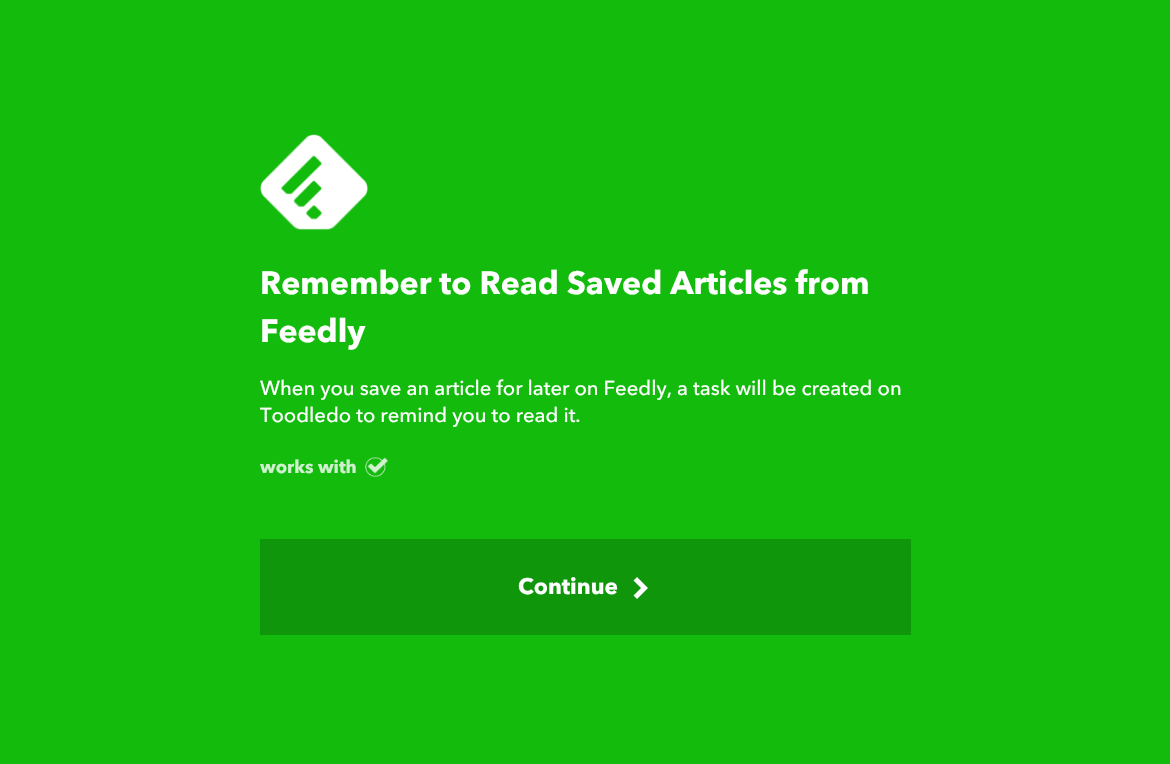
void draw(SkCanvas* canvas) {
    SkPaint paint;
    paint.setAntiAlias(true);
    canvas->clear(0xFF13BB0D);
    canvas->drawImageRect(SkImages::DeferredFromEncodedData(SkData::MakeFromFileName("img1.png")), SkRect::MakeXYWH(260, 134, 108, 96), SkSamplingOptions());
    SkFont font1(fontMgr->matchFamilyStyle("Avenir Next", SkFontStyle::Bold()), 32);
    font1.setSubpixel(true);
    paint.setColor(0xFFFFFFFF);
    canvas->drawString("Remember to Read Saved Articles from", 260, 294, font1, paint);
    canvas->drawString("Feedly", 260, 342, font1, paint);
    SkFont font2(fontMgr->matchFamilyStyle("Avenir Next", SkFontStyle(500, SkFontStyle::kNormal_Width, SkFontStyle::kUpright_Slant)), 20.25f);
    font2.setSubpixel(true);
    canvas->drawString("When you save an article for later on Feedly, a task will be created on", 260, 395, font2, paint);
    canvas->drawString("Toodledo to remind you to read it.", 260, 422, font2, paint);
    SkFont font3(fontMgr->matchFamilyStyle("Avenir Next", SkFontStyle::Bold()), 18);
    font3.setSubpixel(true);
    paint.setColor(0xFFD0F1CF);
    canvas->drawString("works with", 260, 473, font3, paint);
    canvas->drawImageRect(SkImages::DeferredFromEncodedData(SkData::MakeFromFileName("img2.png")), SkRect::MakeXYWH(365, 457, 23, 20), SkSamplingOptions());
    paint.setColor(0xFF0F960A);
    canvas->drawRect(SkRect::MakeXYWH(260, 539, 651, 96), paint);
    SkFont font4(fontMgr->matchFamilyStyle("Avenir Next", SkFontStyle::Bold()), 22.5f);
    font4.setSubpixel(true);
    paint.setColor(0xFFFFFFFF);
    canvas->drawString("Continue", 518, 594, font4, paint);
    canvas->drawPath(SkPathBuilder(SkPathFillType::kEvenOdd).moveTo(648, 588).lineTo(637, 577).lineTo(633.5f, 580.5f).lineTo(641, 588).lineTo(633.5f, 595.5f).lineTo(637, 599).close().detach(), paint);
}
